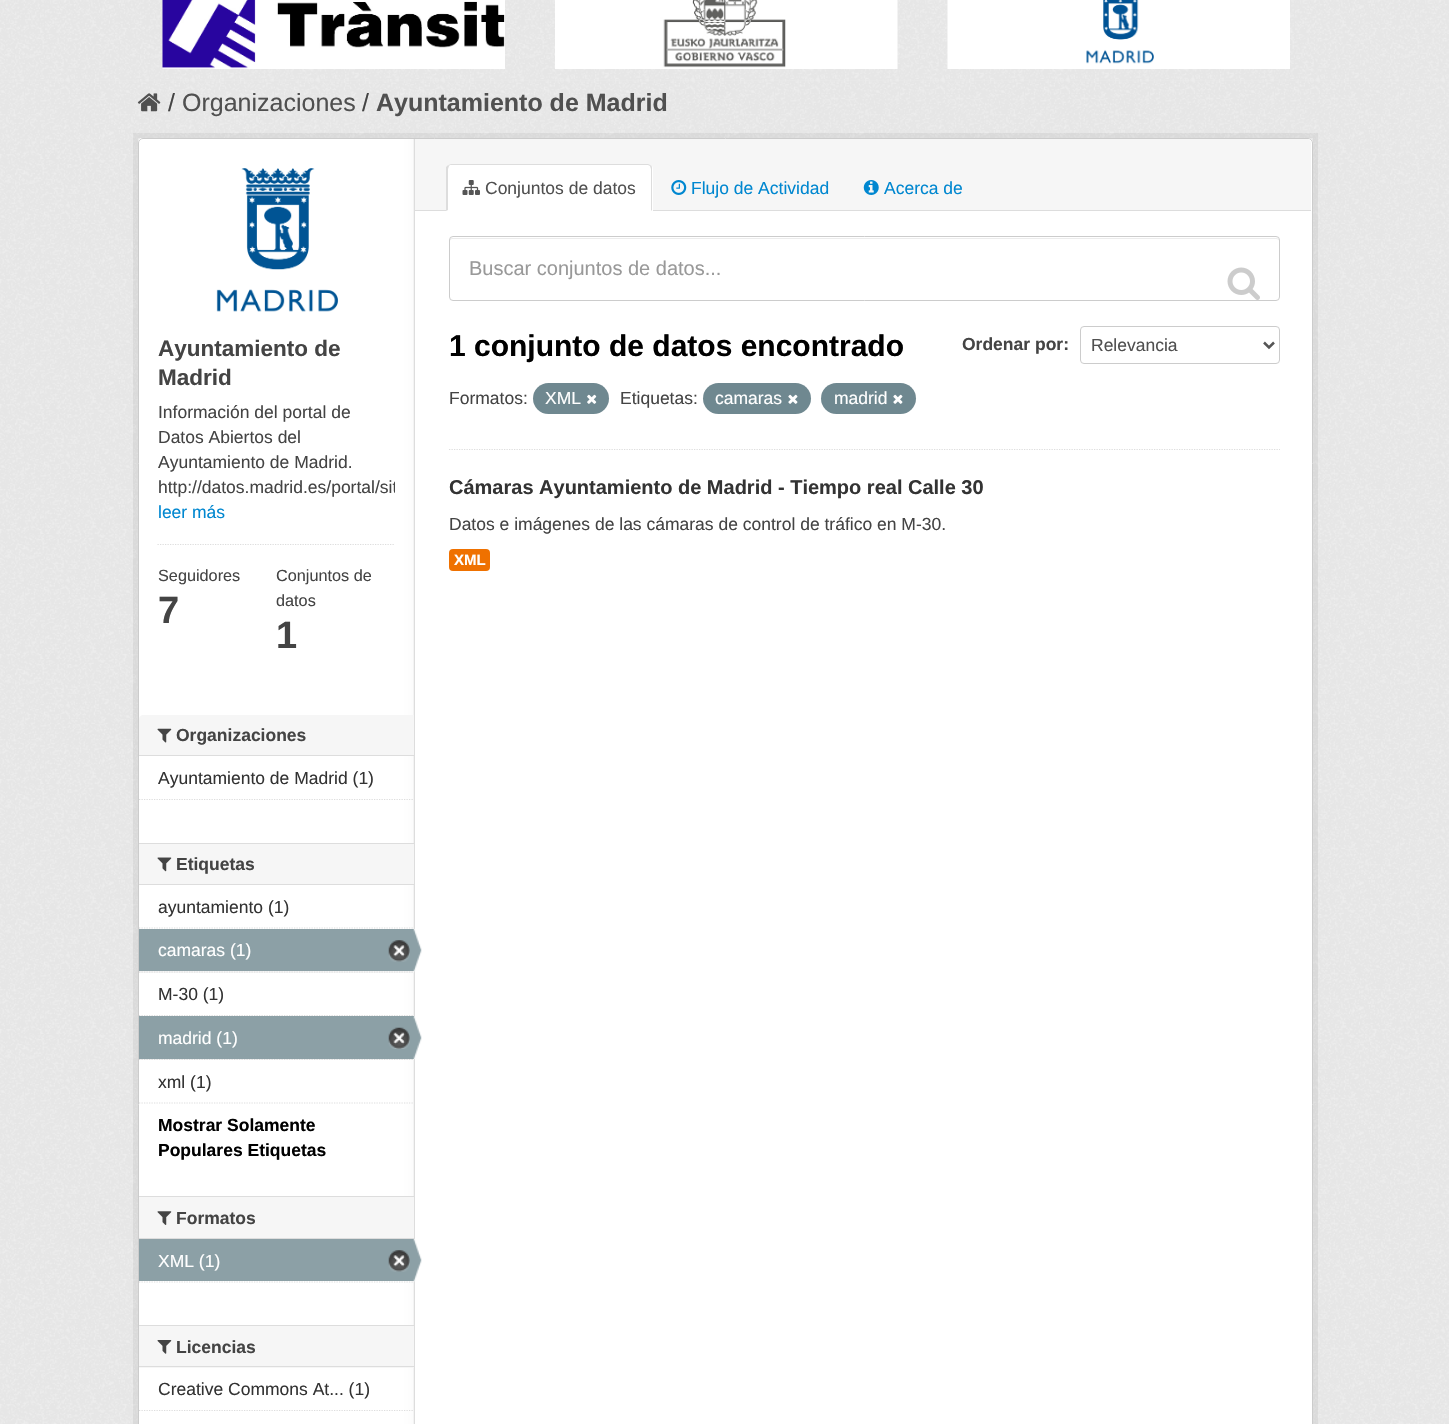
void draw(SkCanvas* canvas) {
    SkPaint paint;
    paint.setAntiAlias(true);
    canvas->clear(0xFFEEEEEE);
    canvas->drawImageRect(SkImages::DeferredFromEncodedData(SkData::MakeFromFileName("img1.png")), SkRect::MakeXYWH(0, 0, 1449, 80), SkSamplingOptions());
    canvas->drawImageRect(SkImages::DeferredFromEncodedData(SkData::MakeFromFileName("img2.png")), SkRect::MakeXYWH(162, 0, 343, 69), SkSamplingOptions());
    canvas->drawImageRect(SkImages::DeferredFromEncodedData(SkData::MakeFromFileName("img3.png")), SkRect::MakeXYWH(555, 0, 343, 69), SkSamplingOptions());
    canvas->drawImageRect(SkImages::DeferredFromEncodedData(SkData::MakeFromFileName("img4.png")), SkRect::MakeXYWH(947, 0, 343, 69), SkSamplingOptions());
    canvas->drawImageRect(SkImages::DeferredFromEncodedData(SkData::MakeFromFileName("img5.png")), SkRect::MakeXYWH(0, 80, 1449, 1344), SkSamplingOptions());
    canvas->drawImageRect(SkImages::DeferredFromEncodedData(SkData::MakeFromFileName("img6.png")), SkRect::MakeXYWH(137, 93, 24, 19), SkSamplingOptions());
    SkFont font1(fontMgr->matchFamilyStyle("Liberation Sans", SkFontStyle::Normal()), 25);
    font1.setSubpixel(true);
    paint.setColor(0xFF444444);
    canvas->drawString("/", 168, 111, font1, paint);
    paint.setColor(0xFF505050);
    canvas->drawString("Organizaciones", 182, 111, font1, paint);
    paint.setColor(0xFF444444);
    canvas->drawString("/", 362, 111, font1, paint);
    SkFont font2(fontMgr->matchFamilyStyle("Liberation Sans", SkFontStyle::Bold()), 25);
    font2.setSubpixel(true);
    paint.setColor(0xFF505050);
    canvas->drawString("Ayuntamiento de Madrid", 376, 111, font2, paint);
    paint.setStyle(SkPaint::kStroke_Style);
    paint.setStrokeWidth(5);
    paint.setColor(0x0D000000);
    canvas->drawRect(SkRect::MakeXYWH(135.5f, 135.5f, 1180, 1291), paint);
    paint.setStyle(SkPaint::kFill_Style);
    paint.setColor(0xFFFFFFFF);
    canvas->drawRoundRect(SkRect::MakeXYWH(138, 138, 1175, 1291), 5, 5, paint);
    canvas->drawImageRect(SkImages::DeferredFromEncodedData(SkData::MakeFromFileName("img7.png")), SkRect::MakeXYWH(138, 138, 277, 1286), SkSamplingOptions());
    paint.setStyle(SkPaint::kStroke_Style);
    paint.setStrokeWidth(1);
    paint.setColor(0xFFCCCCCC);
    canvas->drawRoundRect(SkRect::MakeXYWH(138.5f, 138.5f, 1174, 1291), 4.5f, 4.5f, paint);
    canvas->drawImageRect(SkImages::DeferredFromEncodedData(SkData::MakeFromFileName("img8.png")), SkRect::MakeXYWH(216, 168, 123, 144), SkSamplingOptions());
    SkFont font3(fontMgr->matchFamilyStyle("Liberation Sans", SkFontStyle::Bold()), 22.5f);
    font3.setSubpixel(true);
    paint.setStyle(SkPaint::kFill_Style);
    paint.setColor(0xFF444444);
    canvas->drawString("Ayuntamiento de", 158, 356, font3, paint);
    canvas->drawString("Madrid", 158, 385, font3, paint);
    SkFont font4(fontMgr->matchFamilyStyle("Liberation Sans", SkFontStyle::Normal()), 17.5f);
    font4.setSubpixel(true);
    canvas->drawString("Información del portal de", 158, 418, font4, paint);
    canvas->drawString("Datos Abiertos del", 158, 443, font4, paint);
    canvas->drawString("Ayuntamiento de Madrid.", 158, 468, font4, paint);
    canvas->save();
    canvas->clipRect(SkRect::MakeXYWH(158, 400, 237, 125));
    canvas->drawString("http://datos.madrid.es/portal/sit", 158, 493, font4, paint);
    canvas->restore();
    paint.setColor(0xFF0087D0);
    canvas->drawString("leer más", 158, 518, font4, paint);
    paint.setStyle(SkPaint::kStroke_Style);
    paint.setStrokeWidth(1.2f);
    paint.setColor(0xFFDDDDDD);
    paint.setPathEffect(SkDashPathEffect::Make({{1.25f, 1.25f}}, 0));
    canvas->drawPath(SkPathBuilder().moveTo(157.5f, 544.5f).lineTo(395, 544.5f).detach(), paint);
    paint.setPathEffect(nullptr);
    SkFont font5(fontMgr->matchFamilyStyle("Liberation Sans", SkFontStyle::Normal()), 16.25f);
    font5.setSubpixel(true);
    paint.setStyle(SkPaint::kFill_Style);
    paint.setColor(0xFF444444);
    canvas->drawString("Seguidores", 158, 581, font5, paint);
    SkFont font6(fontMgr->matchFamilyStyle("Liberation Sans", SkFontStyle::Bold()), 38);
    font6.setSubpixel(true);
    canvas->drawString("7", 158, 623, font6, paint);
    canvas->drawString("Conjuntos de", 276, 581, font5, paint);
    canvas->drawString("datos", 276, 606, font5, paint);
    canvas->drawString("1", 276, 648, font6, paint);
    paint.setColor(0xFFF6F6F6);
    canvas->drawPath(SkPathBuilder().moveTo(143, 715).lineTo(414, 715).lineTo(414, 756).lineTo(139, 756).lineTo(139, 719).cubicTo(139, 717, 141, 715, 143, 715).close().detach(), paint);
    paint.setColor(0xFFDDDDDD);
    canvas->drawRect(SkRect::MakeXYWH(139, 755, 275, 1), paint);
    canvas->drawImageRect(SkImages::DeferredFromEncodedData(SkData::MakeFromFileName("img9.png")), SkRect::MakeXYWH(157, 728, 15, 15), SkSamplingOptions());
    SkFont font7(fontMgr->matchFamilyStyle("Liberation Sans", SkFontStyle::Bold()), 17.5f);
    font7.setSubpixel(true);
    paint.setColor(0xFF444444);
    canvas->drawString("Organizaciones", 176, 741, font7, paint);
    paint.setColor(0xFF333333);
    canvas->drawString("Ayuntamiento de Madrid (1)", 158, 784, font4, paint);
    paint.setStyle(SkPaint::kStroke_Style);
    paint.setColor(0xFFDDDDDD);
    paint.setPathEffect(SkDashPathEffect::Make({{1.25f, 1.25f}}, 0));
    canvas->drawPath(SkPathBuilder().moveTo(139, 799.5f).lineTo(414, 799.5f).detach(), paint);
    paint.setPathEffect(nullptr);
    paint.setStyle(SkPaint::kFill_Style);
    paint.setColor(0xFFF6F6F6);
    canvas->drawRect(SkRect::MakeXYWH(139, 844, 275, 40), paint);
    paint.setColor(0xFFDDDDDD);
    canvas->drawRect(SkRect::MakeXYWH(139, 843, 275, 1), paint);
    canvas->drawRect(SkRect::MakeXYWH(139, 884, 275, 1), paint);
    canvas->drawImageRect(SkImages::DeferredFromEncodedData(SkData::MakeFromFileName("img10.png")), SkRect::MakeXYWH(157, 857, 15, 15), SkSamplingOptions());
    paint.setColor(0xFF444444);
    canvas->drawString("Etiquetas", 176, 870, font7, paint);
    paint.setStyle(SkPaint::kStroke_Style);
    paint.setColor(0xFFDDDDDD);
    paint.setPathEffect(SkDashPathEffect::Make({{1.25f, 1.25f}}, 0));
    canvas->drawPath(SkPathBuilder().moveTo(139, 928).lineTo(414, 928).detach(), paint);
    paint.setPathEffect(nullptr);
    paint.setStyle(SkPaint::kFill_Style);
    paint.setColor(0xFF333333);
    canvas->drawString("ayuntamiento (1)", 158, 913, font4, paint);
    paint.setColor(0xFFF6F6F6);
    canvas->drawRect(SkRect::MakeXYWH(139, 971, 275, 2), paint);
    paint.setStyle(SkPaint::kStroke_Style);
    paint.setColor(0xFFDDDDDD);
    paint.setPathEffect(SkDashPathEffect::Make({{1.25f, 1.25f}}, 0));
    canvas->drawPath(SkPathBuilder().moveTo(139, 972).lineTo(414, 972).detach(), paint);
    paint.setPathEffect(nullptr);
    paint.setStyle(SkPaint::kFill_Style);
    paint.setColor(0xFF8CA0A6);
    canvas->drawRect(SkRect::MakeXYWH(139, 929, 275, 42), paint);
    paint.setColor(0xFFFFFFFF);
    canvas->drawString("camaras (1)", 158, 956, font4, paint);
    canvas->drawImageRect(SkImages::DeferredFromEncodedData(SkData::MakeFromFileName("img11.png")), SkRect::MakeXYWH(388, 940, 22, 22), SkSamplingOptions());
    canvas->drawImageRect(SkImages::DeferredFromEncodedData(SkData::MakeFromFileName("img12.png")), SkRect::MakeXYWH(413, 929, 9, 43), SkSamplingOptions());
    paint.setStyle(SkPaint::kStroke_Style);
    paint.setColor(0xFFDDDDDD);
    paint.setPathEffect(SkDashPathEffect::Make({{1.25f, 1.25f}}, 0));
    canvas->drawPath(SkPathBuilder().moveTo(139, 1015.5f).lineTo(414, 1015.5f).detach(), paint);
    paint.setPathEffect(nullptr);
    paint.setStyle(SkPaint::kFill_Style);
    paint.setColor(0xFF333333);
    canvas->drawString("M-30 (1)", 158, 1000, font4, paint);
    paint.setColor(0xFFF6F6F6);
    canvas->drawRect(SkRect::MakeXYWH(140, 1059, 274, 1), paint);
    paint.setStyle(SkPaint::kStroke_Style);
    paint.setColor(0xFFDDDDDD);
    paint.setPathEffect(SkDashPathEffect::Make({{1.25f, 1.25f}}, 0));
    canvas->drawPath(SkPathBuilder().moveTo(139, 1059.5f).lineTo(414, 1059.5f).detach(), paint);
    paint.setPathEffect(nullptr);
    paint.setStyle(SkPaint::kFill_Style);
    paint.setColor(0xFF8CA0A6);
    canvas->drawRect(SkRect::MakeXYWH(139, 1016, 275, 43), paint);
    paint.setColor(0xFFFFFFFF);
    canvas->drawString("madrid (1)", 158, 1044, font4, paint);
    canvas->drawImageRect(SkImages::DeferredFromEncodedData(SkData::MakeFromFileName("img13.png")), SkRect::MakeXYWH(388, 1027, 22, 22), SkSamplingOptions());
    canvas->drawImageRect(SkImages::DeferredFromEncodedData(SkData::MakeFromFileName("img14.png")), SkRect::MakeXYWH(413, 1016, 9, 43), SkSamplingOptions());
    paint.setColor(0xFF333333);
    canvas->drawString("xml (1)", 158, 1088, font4, paint);
    paint.setStyle(SkPaint::kStroke_Style);
    paint.setColor(0xFFDDDDDD);
    paint.setPathEffect(SkDashPathEffect::Make({{1.25f, 1.25f}}, 0));
    canvas->drawPath(SkPathBuilder().moveTo(139, 1103).lineTo(414, 1103).detach(), paint);
    paint.setPathEffect(nullptr);
    paint.setStyle(SkPaint::kFill_Style);
    paint.setColor(0xFF000000);
    canvas->drawString("Mostrar Solamente", 158, 1131, font7, paint);
    canvas->drawString("Populares Etiquetas", 158, 1156, font7, paint);
    paint.setColor(0xFFF6F6F6);
    canvas->drawRect(SkRect::MakeXYWH(139, 1197, 275, 41), paint);
    paint.setColor(0xFFDDDDDD);
    canvas->drawRect(SkRect::MakeXYWH(139, 1196, 275, 1), paint);
    canvas->drawRect(SkRect::MakeXYWH(139, 1238, 275, 1), paint);
    canvas->drawImageRect(SkImages::DeferredFromEncodedData(SkData::MakeFromFileName("img15.png")), SkRect::MakeXYWH(157, 1211, 15, 14), SkSamplingOptions());
    paint.setColor(0xFF444444);
    canvas->drawString("Formatos", 176, 1224, font7, paint);
    paint.setColor(0xFF8CA0A6);
    canvas->drawRect(SkRect::MakeXYWH(139, 1239, 275, 42), paint);
    paint.setColor(0xFFFFFFFF);
    canvas->drawString("XML (1)", 158, 1267, font4, paint);
    canvas->drawImageRect(SkImages::DeferredFromEncodedData(SkData::MakeFromFileName("img11.png")), SkRect::MakeXYWH(388, 1250, 22, 22), SkSamplingOptions());
    canvas->drawImageRect(SkImages::DeferredFromEncodedData(SkData::MakeFromFileName("img16.png")), SkRect::MakeXYWH(413, 1239, 9, 43), SkSamplingOptions());
    paint.setStyle(SkPaint::kStroke_Style);
    paint.setColor(0xFFDDDDDD);
    paint.setPathEffect(SkDashPathEffect::Make({{1.25f, 1.25f}}, 0));
    canvas->drawPath(SkPathBuilder().moveTo(139, 1282).lineTo(414, 1282).detach(), paint);
    paint.setPathEffect(nullptr);
    paint.setStyle(SkPaint::kFill_Style);
    paint.setColor(0xFFF6F6F6);
    canvas->drawRect(SkRect::MakeXYWH(139, 1326, 275, 42), paint);
    paint.setColor(0xFFDDDDDD);
    canvas->drawRect(SkRect::MakeXYWH(139, 1325, 275, 1), paint);
    canvas->drawRect(SkRect::MakeXYWH(139, 1366, 275, 1), paint);
    canvas->drawImageRect(SkImages::DeferredFromEncodedData(SkData::MakeFromFileName("img17.png")), SkRect::MakeXYWH(157, 1340, 15, 14), SkSamplingOptions());
    paint.setColor(0xFF444444);
    canvas->drawString("Licencias", 176, 1353, font7, paint);
    paint.setColor(0xFF333333);
    canvas->drawString("Creative Commons At... (1)", 158, 1395, font4, paint);
    paint.setStyle(SkPaint::kStroke_Style);
    paint.setColor(0xFFDDDDDD);
    paint.setPathEffect(SkDashPathEffect::Make({{1.25f, 1.25f}}, 0));
    canvas->drawPath(SkPathBuilder().moveTo(139, 1410.5f).lineTo(414, 1410.5f).detach(), paint);
    paint.setPathEffect(nullptr);
    paint.setStyle(SkPaint::kFill_Style);
    paint.setColor(0xFFF6F6F6);
    canvas->drawPath(SkPathBuilder().moveTo(415, 139).lineTo(1307, 139).cubicTo(1309, 139, 1311, 141, 1311, 143).lineTo(1311, 211).lineTo(415, 211).close().detach(), paint);
    paint.setColor(0xFFDDDDDD);
    canvas->drawRect(SkRect::MakeXYWH(415, 210, 896, 1), paint);
    paint.setColor(0xFFFFFFFF);
    canvas->drawPath(SkPathBuilder().moveTo(451, 164).lineTo(648, 164).cubicTo(651, 164, 653, 166, 653, 169).lineTo(653, 211).lineTo(446, 211).lineTo(446, 169).cubicTo(446, 166, 448, 164, 451, 164).close().detach(), paint);
    paint.setColor(0xFFDDDDDD);
    canvas->drawPath(SkPathBuilder().moveTo(451, 164).lineTo(448, 165).lineTo(449, 166).lineTo(450, 165).lineTo(648, 165).lineTo(650, 166).lineTo(651, 165).cubicTo(650, 165, 649, 164, 648, 164).close().detach(), paint);
    canvas->drawPath(SkPathBuilder().moveTo(652, 211).lineTo(652, 169).cubicTo(652, 168, 652, 166, 651, 165).lineTo(650, 166).lineTo(651, 169).lineTo(651, 210).close().detach(), paint);
    canvas->drawPath(SkPathBuilder().moveTo(446, 167).lineTo(448, 165).lineTo(449, 166).lineTo(448, 169).lineTo(448, 210).lineTo(446, 211).close().detach(), paint);
    canvas->drawImageRect(SkImages::DeferredFromEncodedData(SkData::MakeFromFileName("img18.png")), SkRect::MakeXYWH(462, 180, 18, 15), SkSamplingOptions());
    paint.setColor(0xFF505050);
    canvas->drawString("Conjuntos de datos", 485, 194, font4, paint);
    canvas->drawImageRect(SkImages::DeferredFromEncodedData(SkData::MakeFromFileName("img19.png")), SkRect::MakeXYWH(671, 180, 16, 15), SkSamplingOptions());
    paint.setColor(0xFF0087D0);
    canvas->drawString("Flujo de Actividad", 691, 194, font4, paint);
    canvas->drawImageRect(SkImages::DeferredFromEncodedData(SkData::MakeFromFileName("img20.png")), SkRect::MakeXYWH(863, 180, 16, 15), SkSamplingOptions());
    canvas->drawString("Acerca de", 884, 194, font4, paint);
    paint.setStyle(SkPaint::kStroke_Style);
    paint.setColor(0xFFDDDDDD);
    paint.setPathEffect(SkDashPathEffect::Make({{1.25f, 1.25f}}, 0));
    canvas->drawPath(SkPathBuilder().moveTo(449, 449.5f).lineTo(1280, 449.5f).detach(), paint);
    paint.setPathEffect(nullptr);
    paint.setStyle(SkPaint::kFill_Style);
    paint.setColor(0xFFECECEC);
    canvas->drawPath(SkPathBuilder().moveTo(452, 239).lineTo(1276, 239).cubicTo(1278, 239, 1279, 240, 1279, 241).lineTo(1279, 240).cubicTo(1279, 239, 1278, 238, 1276, 238).lineTo(452, 238).cubicTo(451, 238, 450, 239, 450, 240).lineTo(450, 241).cubicTo(450, 240, 451, 239, 452, 239).close().detach(), paint);
    paint.setStyle(SkPaint::kStroke_Style);
    paint.setStrokeWidth(1);
    paint.setColor(0xFFCCCCCC);
    canvas->drawRoundRect(SkRect::MakeXYWH(449.5f, 236.5f, 830, 64), 3.5f, 3.5f, paint);
    SkFont font8(fontMgr->matchFamilyStyle("Liberation Sans", SkFontStyle::Normal()), 20);
    font8.setSubpixel(true);
    paint.setStyle(SkPaint::kFill_Style);
    paint.setColor(0xFF999999);
    canvas->drawString("Buscar conjuntos de datos...", 469, 275, font8, paint);
    canvas->drawImageRect(SkImages::DeferredFromEncodedData(SkData::MakeFromFileName("img21.png")), SkRect::MakeXYWH(1227, 267, 33, 33), SkSamplingOptions());
    SkFont font9(fontMgr->matchFamilyStyle("Liberation Sans", SkFontStyle::Bold()), 30);
    font9.setSubpixel(true);
    paint.setColor(0xFF000000);
    canvas->drawString("1 conjunto de datos encontrado", 449, 356, font9, paint);
    paint.setColor(0xFF444444);
    canvas->drawString("Ordenar por:", 962, 350, font7, paint);
    paint.setStyle(SkPaint::kStroke_Style);
    paint.setColor(0xFFCCCCCC);
    canvas->drawRoundRect(SkRect::MakeXYWH(1080.5f, 326.5f, 199, 37), 3.5f, 3.5f, paint);
    paint.setStrokeWidth(2.5f);
    paint.setColor(0xFF555555);
    canvas->drawPath(SkPathBuilder().moveTo(1264, 342.5f).lineTo(1269, 347.5f).lineTo(1274, 342.5f).detach(), paint);
    paint.setStyle(SkPaint::kFill_Style);
    paint.setColor(0xFF505050);
    canvas->drawString("Relevancia", 1091, 351, font4, paint);
    paint.setColor(0xFF444444);
    canvas->drawString("Formatos:", 449, 404, font4, paint);
    paint.setColor(0xFF6F8890);
    canvas->drawRoundRect(SkRect::MakeXYWH(533, 383, 76, 31), 15.5f, 15.5f, paint);
    paint.setColor(0xFFFFFFFF);
    canvas->drawString("XML", 545, 404, font4, paint);
    canvas->drawImageRect(SkImages::DeferredFromEncodedData(SkData::MakeFromFileName("img22.png")), SkRect::MakeXYWH(587, 394, 10, 10), SkSamplingOptions());
    paint.setColor(0xFF444444);
    canvas->drawString("Etiquetas:", 620, 404, font4, paint);
    paint.setColor(0xFF6F8890);
    canvas->drawRoundRect(SkRect::MakeXYWH(703, 383, 108, 31), 15.5f, 15.5f, paint);
    paint.setColor(0xFFFFFFFF);
    canvas->drawString("camaras", 715, 404, font4, paint);
    canvas->drawImageRect(SkImages::DeferredFromEncodedData(SkData::MakeFromFileName("img23.png")), SkRect::MakeXYWH(788, 394, 10, 10), SkSamplingOptions());
    paint.setColor(0xFF6F8890);
    canvas->drawRoundRect(SkRect::MakeXYWH(821, 383, 95, 31), 15.5f, 15.5f, paint);
    paint.setColor(0xFFFFFFFF);
    canvas->drawString("madrid", 834, 404, font4, paint);
    canvas->drawImageRect(SkImages::DeferredFromEncodedData(SkData::MakeFromFileName("img23.png")), SkRect::MakeXYWH(893, 394, 10, 10), SkSamplingOptions());
    SkFont font10(fontMgr->matchFamilyStyle("Liberation Sans", SkFontStyle::Bold()), 20);
    font10.setSubpixel(true);
    paint.setColor(0xFF333333);
    canvas->drawString("Cámaras Ayuntamiento de Madrid - Tiempo real Calle 30", 449, 494, font10, paint);
    paint.setColor(0xFF444444);
    canvas->drawString("Datos e imágenes de las cámaras de control de tráfico en M-30.", 449, 530, font4, paint);
    paint.setColor(0xFFEF7100);
    canvas->drawRoundRect(SkRect::MakeXYWH(449, 549, 41, 22), 4, 4, paint);
    SkFont font11(fontMgr->matchFamilyStyle("Liberation Sans", SkFontStyle::Bold()), 15);
    font11.setSubpixel(true);
    paint.setColor(0xFFFFFFFF);
    canvas->drawString("XML", 454, 565, font11, paint);
}
